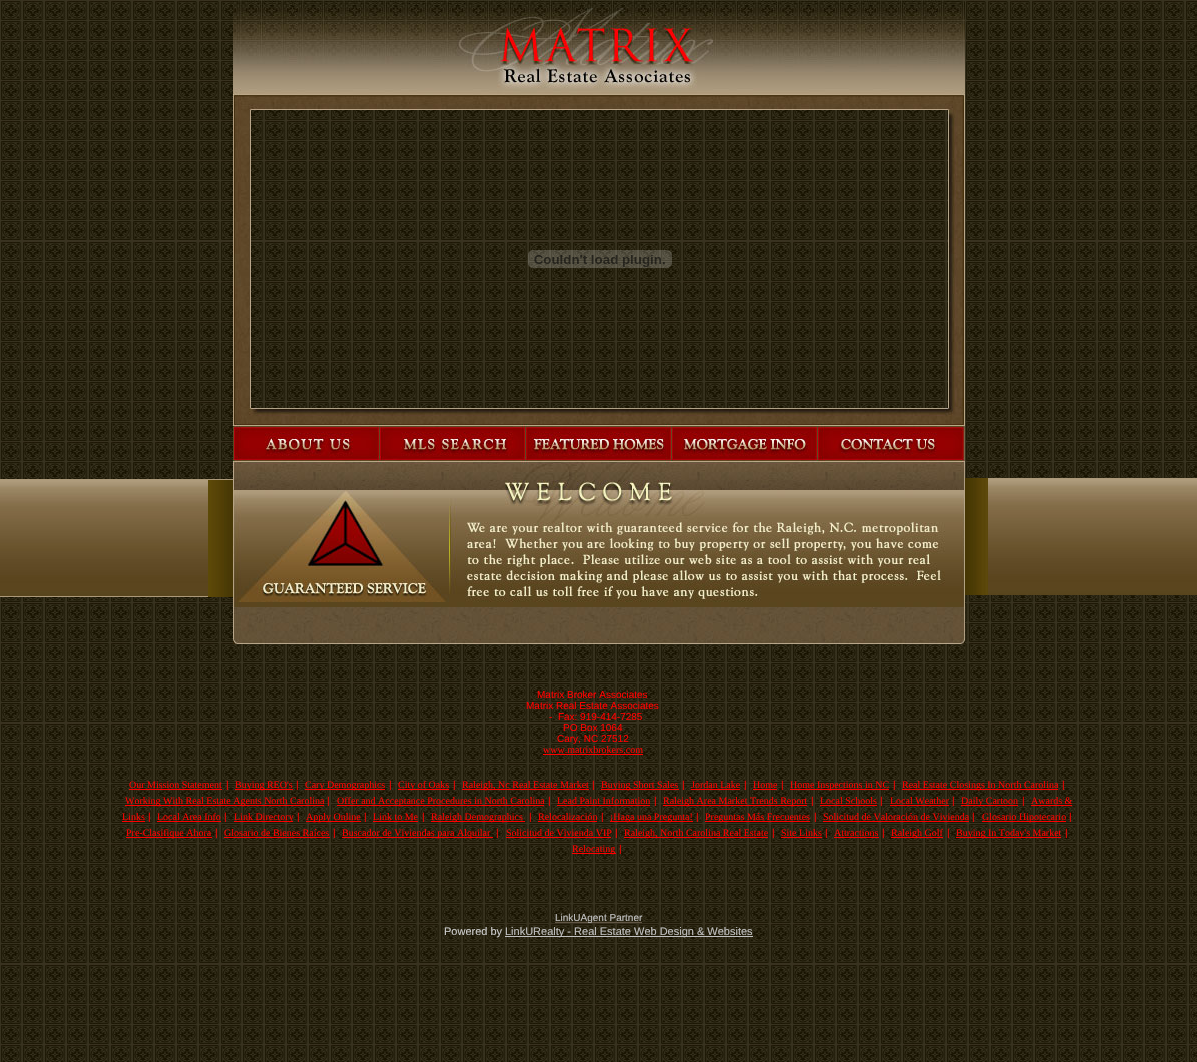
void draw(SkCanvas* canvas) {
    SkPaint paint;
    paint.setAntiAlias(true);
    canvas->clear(0xFFFFFFFF);
    canvas->drawImageRect(SkImages::DeferredFromEncodedData(SkData::MakeFromFileName("img1.png")), SkRect::MakeXYWH(0, 0, 1197, 1062), SkSamplingOptions());
    canvas->drawImageRect(SkImages::DeferredFromEncodedData(SkData::MakeFromFileName("img2.png")), SkRect::MakeXYWH(0, 479, 208, 118), SkSamplingOptions());
    canvas->drawImageRect(SkImages::DeferredFromEncodedData(SkData::MakeFromFileName("img3.png")), SkRect::MakeXYWH(208, 479, 25, 1), SkSamplingOptions());
    canvas->drawImageRect(SkImages::DeferredFromEncodedData(SkData::MakeFromFileName("img4.png")), SkRect::MakeXYWH(208, 480, 25, 117), SkSamplingOptions());
    canvas->drawImageRect(SkImages::DeferredFromEncodedData(SkData::MakeFromFileName("img5.png")), SkRect::MakeXYWH(233, 0, 732, 110), SkSamplingOptions());
    canvas->drawImageRect(SkImages::DeferredFromEncodedData(SkData::MakeFromFileName("img6.png")), SkRect::MakeXYWH(233, 110, 18, 298), SkSamplingOptions());
    canvas->drawImageRect(SkImages::DeferredFromEncodedData(SkData::MakeFromFileName("img7.png")), SkRect::MakeXYWH(528, 250, 144, 18), SkSamplingOptions());
    canvas->drawImageRect(SkImages::DeferredFromEncodedData(SkData::MakeFromFileName("img8.png")), SkRect::MakeXYWH(948, 110, 17, 298), SkSamplingOptions());
    canvas->drawImageRect(SkImages::DeferredFromEncodedData(SkData::MakeFromFileName("img9.png")), SkRect::MakeXYWH(233, 408, 732, 82), SkSamplingOptions());
    canvas->drawImageRect(SkImages::DeferredFromEncodedData(SkData::MakeFromFileName("img10.png")), SkRect::MakeXYWH(233, 490, 732, 117), SkSamplingOptions());
    canvas->drawImageRect(SkImages::DeferredFromEncodedData(SkData::MakeFromFileName("img11.png")), SkRect::MakeXYWH(233, 607, 732, 37), SkSamplingOptions());
    canvas->drawImageRect(SkImages::DeferredFromEncodedData(SkData::MakeFromFileName("img12.png")), SkRect::MakeXYWH(965, 1, 232, 477), SkSamplingOptions());
    canvas->drawImageRect(SkImages::DeferredFromEncodedData(SkData::MakeFromFileName("img13.png")), SkRect::MakeXYWH(965, 478, 23, 117), SkSamplingOptions());
    canvas->drawImageRect(SkImages::DeferredFromEncodedData(SkData::MakeFromFileName("img14.png")), SkRect::MakeXYWH(988, 478, 209, 117), SkSamplingOptions());
    SkFont font1(fontMgr->matchFamilyStyle("Liberation Sans", SkFontStyle::Normal()), 10);
    font1.setSubpixel(true);
    paint.setColor(0xFFFF0000);
    canvas->drawString("Matrix Broker Associates", 537, 698, font1, paint);
    canvas->drawString("Matrix Real Estate Associates", 526, 709, font1, paint);
    canvas->drawString("-  Fax: 919-414-7285", 549, 720, font1, paint);
    canvas->drawString("PO Box 1064", 563, 731, font1, paint);
    canvas->drawString("Cary, NC 27512", 557, 742, font1, paint);
    SkFont font2(fontMgr->matchFamilyStyle("Liberation Serif", SkFontStyle::Normal()), 10);
    font2.setSubpixel(true);
    canvas->drawString("www.matrixbrokers.com", 543, 753, font2, paint);
    canvas->drawRect(SkRect::MakeXYWH(543, 754, 100, 1), paint);
    canvas->drawString("Our Mission Statement", 129, 788, font2, paint);
    canvas->drawRect(SkRect::MakeXYWH(129, 789, 93, 1), paint);
    canvas->drawString("|", 226, 788, font1, paint);
    canvas->drawRect(SkRect::MakeXYWH(235, 789, 58, 1), paint);
    canvas->drawString("Buying REO's", 235, 788, font2, paint);
    canvas->drawString("|", 296, 788, font1, paint);
    canvas->drawRect(SkRect::MakeXYWH(305, 789, 80, 1), paint);
    canvas->drawString("Cary Demographics", 305, 788, font2, paint);
    canvas->drawString("|", 389, 788, font1, paint);
    canvas->drawRect(SkRect::MakeXYWH(398, 789, 51, 1), paint);
    canvas->drawString("City of Oaks", 398, 788, font2, paint);
    canvas->drawString("|", 453, 788, font1, paint);
    canvas->drawRect(SkRect::MakeXYWH(462, 789, 127, 1), paint);
    canvas->drawString("Raleigh, Nc Real Estate Market", 462, 788, font2, paint);
    canvas->drawString("|", 592, 788, font1, paint);
    canvas->drawRect(SkRect::MakeXYWH(601, 789, 78, 1), paint);
    canvas->drawString("Buying Short Sales", 601, 788, font2, paint);
    canvas->drawString("|", 682, 788, font1, paint);
    canvas->drawString("Jordan Lake", 691, 788, font2, paint);
    canvas->drawRect(SkRect::MakeXYWH(691, 789, 49, 1), paint);
    canvas->drawString("|", 744, 788, font1, paint);
    canvas->drawString("Home", 753, 788, font2, paint);
    canvas->drawRect(SkRect::MakeXYWH(753, 789, 24, 1), paint);
    canvas->drawString("|", 781, 788, font1, paint);
    canvas->drawRect(SkRect::MakeXYWH(790, 789, 99, 1), paint);
    canvas->drawString("Home Inspections in NC", 790, 788, font2, paint);
    canvas->drawString("|", 893, 788, font1, paint);
    canvas->drawRect(SkRect::MakeXYWH(902, 789, 156, 1), paint);
    canvas->drawString("Real Estate Closings In North Carolina", 902, 788, font2, paint);
    canvas->drawString("|", 1062, 788, font1, paint);
    canvas->drawRect(SkRect::MakeXYWH(125, 805, 199, 1), paint);
    canvas->drawString("Working With Real Estate Agents North Carolina", 125, 804, font2, paint);
    canvas->drawString("|", 327, 804, font1, paint);
    canvas->drawRect(SkRect::MakeXYWH(337, 805, 207, 1), paint);
    canvas->drawString("Offer and Acceptance Procedures in North Carolina", 337, 804, font2, paint);
    canvas->drawString("|", 548, 804, font1, paint);
    canvas->drawString("Lead Paint Information", 557, 804, font2, paint);
    canvas->drawRect(SkRect::MakeXYWH(557, 805, 93, 1), paint);
    canvas->drawString("|", 654, 804, font1, paint);
    canvas->drawRect(SkRect::MakeXYWH(663, 805, 144, 1), paint);
    canvas->drawString("Raleigh Area Market Trends Report", 663, 804, font2, paint);
    canvas->drawString("|", 811, 804, font1, paint);
    canvas->drawString("Local Schools", 820, 804, font2, paint);
    canvas->drawRect(SkRect::MakeXYWH(820, 805, 57, 1), paint);
    canvas->drawString("|", 880, 804, font1, paint);
    canvas->drawString("Local Weather", 890, 804, font2, paint);
    canvas->drawRect(SkRect::MakeXYWH(890, 805, 59, 1), paint);
    canvas->drawString("|", 952, 804, font1, paint);
    canvas->drawRect(SkRect::MakeXYWH(961, 805, 57, 1), paint);
    canvas->drawString("Daily Cartoon", 961, 804, font2, paint);
    canvas->drawString("|", 1022, 804, font1, paint);
    canvas->drawString("Awards &", 1031, 804, font2, paint);
    canvas->drawRect(SkRect::MakeXYWH(1031, 805, 41, 1), paint);
    canvas->drawString("Links", 122, 820, font2, paint);
    canvas->drawRect(SkRect::MakeXYWH(122, 821, 23, 1), paint);
    canvas->drawString("|", 148, 820, font1, paint);
    canvas->drawString("Local Area Info", 157, 820, font2, paint);
    canvas->drawRect(SkRect::MakeXYWH(157, 821, 64, 1), paint);
    canvas->drawString("|", 224, 820, font1, paint);
    canvas->drawRect(SkRect::MakeXYWH(234, 821, 59, 1), paint);
    canvas->drawString("Link Directory", 234, 820, font2, paint);
    canvas->drawString("|", 297, 820, font1, paint);
    canvas->drawRect(SkRect::MakeXYWH(306, 821, 55, 1), paint);
    canvas->drawString("Apply Online", 306, 820, font2, paint);
    canvas->drawString("|", 364, 820, font1, paint);
    canvas->drawString("Link to Me", 373, 820, font2, paint);
    canvas->drawRect(SkRect::MakeXYWH(373, 821, 45, 1), paint);
    canvas->drawString("|", 422, 820, font1, paint);
    canvas->drawRect(SkRect::MakeXYWH(431, 821, 94, 1), paint);
    canvas->drawString("Raleigh Demographics", 431, 820, font2, paint);
    canvas->drawString("|", 529, 820, font1, paint);
    canvas->drawString("Relocalización", 538, 820, font2, paint);
    canvas->drawRect(SkRect::MakeXYWH(538, 821, 59, 1), paint);
    canvas->drawString("|", 601, 820, font1, paint);
    canvas->drawRect(SkRect::MakeXYWH(610, 821, 83, 1), paint);
    canvas->drawString("¡Haga una Pregunta!", 610, 820, font2, paint);
    canvas->drawString("|", 696, 820, font1, paint);
    canvas->drawRect(SkRect::MakeXYWH(705, 821, 105, 1), paint);
    canvas->drawString("Preguntas Más Frecuentes", 705, 820, font2, paint);
    canvas->drawString("|", 814, 820, font1, paint);
    canvas->drawString("Solicitud de Valoración de Vivienda", 823, 820, font2, paint);
    canvas->drawRect(SkRect::MakeXYWH(823, 821, 146, 1), paint);
    canvas->drawString("|", 972, 820, font1, paint);
    canvas->drawRect(SkRect::MakeXYWH(982, 821, 84, 1), paint);
    canvas->drawString("Glosario Hipotecario", 982, 820, font2, paint);
    canvas->drawString("|", 1069, 820, font1, paint);
    canvas->drawRect(SkRect::MakeXYWH(126, 837, 86, 1), paint);
    canvas->drawString("Pre-Clasifique Ahora", 126, 836, font2, paint);
    canvas->drawString("|", 215, 836, font1, paint);
    canvas->drawString("Glosario de Bienes Raíces", 224, 836, font2, paint);
    canvas->drawRect(SkRect::MakeXYWH(224, 837, 106, 1), paint);
    canvas->drawString("|", 333, 836, font1, paint);
    canvas->drawRect(SkRect::MakeXYWH(342, 837, 151, 1), paint);
    canvas->drawString("Buscador de Viviendas para Alquilar", 342, 836, font2, paint);
    canvas->drawString("|", 496, 836, font1, paint);
    canvas->drawString("Solicitud de Vivienda VIP", 506, 836, font2, paint);
    canvas->drawRect(SkRect::MakeXYWH(506, 837, 105, 1), paint);
    canvas->drawString("|", 615, 836, font1, paint);
    canvas->drawRect(SkRect::MakeXYWH(624, 837, 144, 1), paint);
    canvas->drawString("Raleigh, North Carolina Real Estate", 624, 836, font2, paint);
    canvas->drawString("|", 772, 836, font1, paint);
    canvas->drawString("Site Links", 781, 836, font2, paint);
    canvas->drawRect(SkRect::MakeXYWH(781, 837, 41, 1), paint);
    canvas->drawString("|", 825, 836, font1, paint);
    canvas->drawString("Attractions", 834, 836, font2, paint);
    canvas->drawRect(SkRect::MakeXYWH(834, 837, 45, 1), paint);
    canvas->drawString("|", 882, 836, font1, paint);
    canvas->drawRect(SkRect::MakeXYWH(891, 837, 52, 1), paint);
    canvas->drawString("Raleigh Golf", 891, 836, font2, paint);
    canvas->drawString("|", 947, 836, font1, paint);
    canvas->drawRect(SkRect::MakeXYWH(956, 837, 105, 1), paint);
    canvas->drawString("Buying In Today's Market", 956, 836, font2, paint);
    canvas->drawString("|", 1065, 836, font1, paint);
    canvas->drawRect(SkRect::MakeXYWH(572, 853, 44, 1), paint);
    canvas->drawString("Relocating", 572, 852, font2, paint);
    canvas->drawString("|", 619, 852, font1, paint);
    paint.setColor(0xFF615544);
    canvas->drawRect(SkRect::MakeXYWH(555, 922, 87, 1), paint);
    paint.setColor(0xFFC0C0C0);
    canvas->drawString("LinkUAgent Partner", 555, 921, font1, paint);
    SkFont font3(fontMgr->matchFamilyStyle("Liberation Sans", SkFontStyle::Normal()), 11);
    font3.setSubpixel(true);
    paint.setColor(0xFFCCCCCC);
    canvas->drawString("Powered by", 444, 935, font3, paint);
    paint.setColor(0xFFC0C0C0);
    canvas->drawRect(SkRect::MakeXYWH(505, 936, 248, 1), paint);
    canvas->drawString("LinkURealty - Real Estate Web Design & Websites", 505, 935, font3, paint);
}
